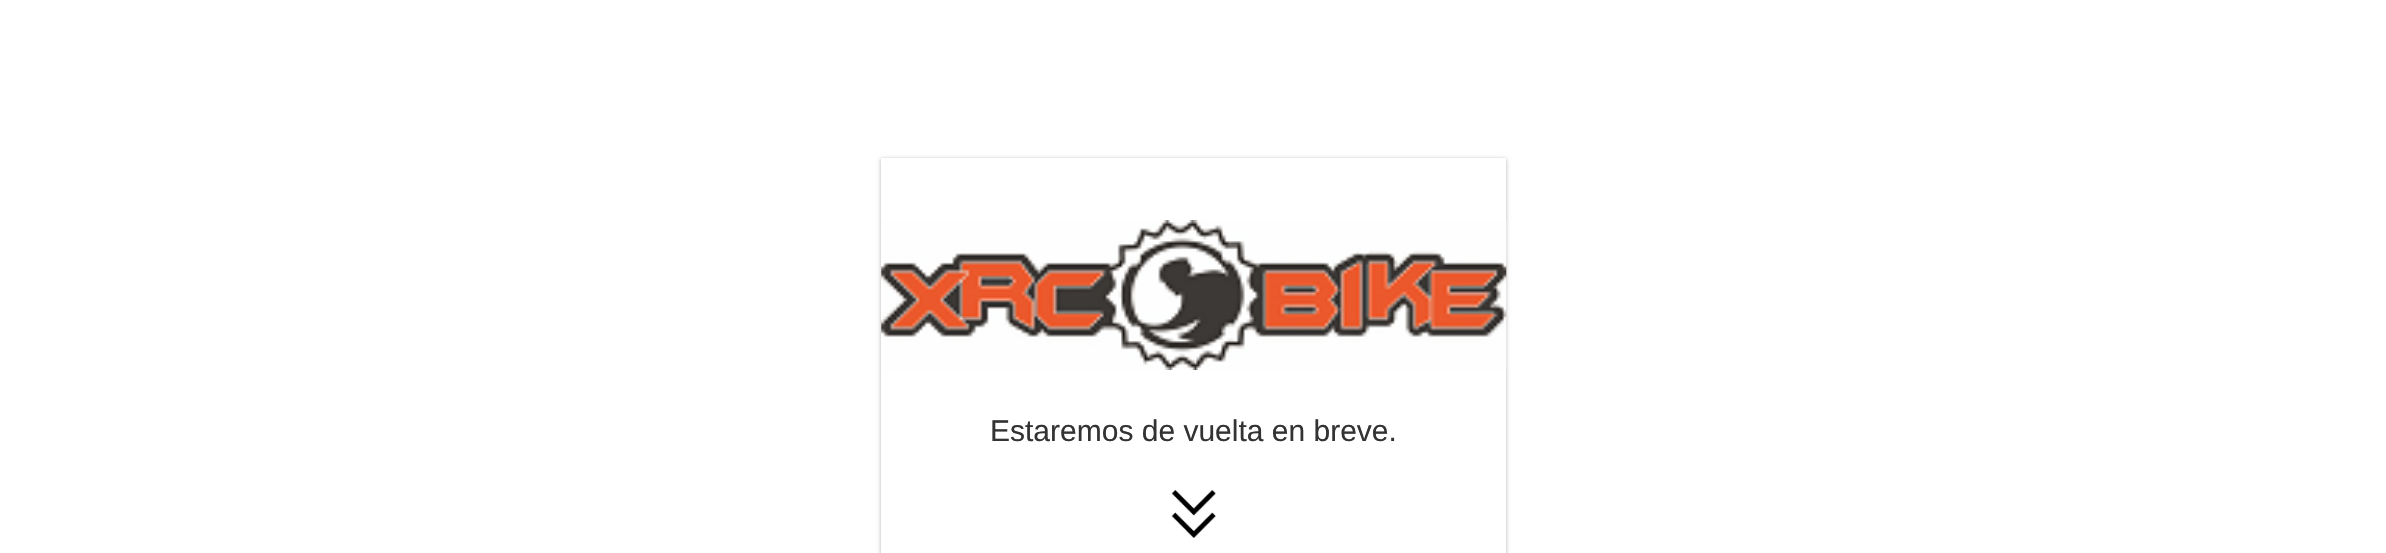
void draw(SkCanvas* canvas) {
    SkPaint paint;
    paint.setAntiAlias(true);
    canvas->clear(0xFFFFFFFF);
    paint.setColor(0x4D000000);
    paint.setMaskFilter(SkMaskFilter::MakeBlur(kNormal_SkBlurStyle, 2));
    canvas->drawRect(SkRect::MakeXYWH(881, 159, 625, 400), paint);
    paint.setMaskFilter(nullptr);
    paint.setColor(0xFFFFFFFF);
    canvas->drawRect(SkRect::MakeXYWH(881, 158, 625, 395), paint);
    canvas->drawImageRect(SkImages::DeferredFromEncodedData(SkData::MakeFromFileName("img1.png")), SkRect::MakeXYWH(881, 220, 626, 150), SkSamplingOptions());
    SkFont font1(fontMgr->matchFamilyStyle("Liberation Sans", SkFontStyle::Normal()), 30);
    font1.setSubpixel(true);
    paint.setColor(0xFF333333);
    canvas->drawString("Estaremos de vuelta en breve.", 990, 441, font1, paint);
    canvas->drawImageRect(SkImages::DeferredFromEncodedData(SkData::MakeFromFileName("img2.png")), SkRect::MakeXYWH(1171, 490, 45, 48), SkSamplingOptions());
}
